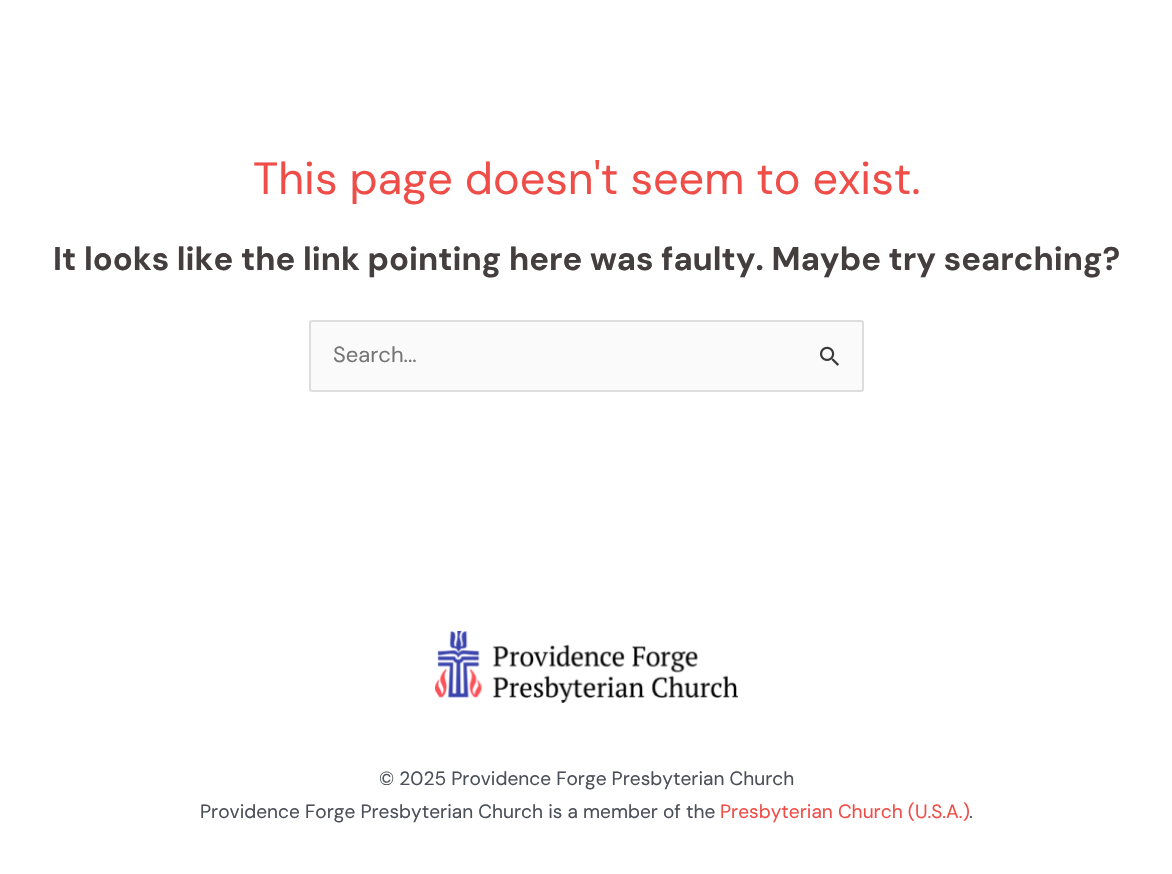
void draw(SkCanvas* canvas) {
    SkPaint paint;
    paint.setAntiAlias(true);
    canvas->clear(0xFFFFFFFF);
    SkFont font1(fontMgr->matchFamilyStyle("DM Sans", SkFontStyle::Normal()), 45);
    font1.setSubpixel(true);
    paint.setColor(0xFFEF4D48);
    canvas->drawString("This page doesn't seem to exist.", 253, 194, font1, paint);
    SkFont font2(fontMgr->matchFamilyStyle("DM Sans", SkFontStyle::Bold()), 32.8f);
    font2.setSubpixel(true);
    paint.setColor(0xFF453E3E);
    canvas->drawString("It looks like the link pointing here was faulty. Maybe try searching?", 53, 270, font2, paint);
    paint.setColor(0xFFFAFAFA);
    canvas->drawRoundRect(SkRect::MakeXYWH(310, 321, 553, 70), 2, 2, paint);
    paint.setStyle(SkPaint::kStroke_Style);
    paint.setStrokeWidth(2);
    paint.setColor(0xFFDDDDDD);
    canvas->drawRoundRect(SkRect::MakeXYWH(310, 321, 553, 70), 2, 2, paint);
    SkFont font3(fontMgr->matchFamilyStyle("DM Sans", SkFontStyle::Normal()), 22);
    font3.setSubpixel(true);
    paint.setStyle(SkPaint::kFill_Style);
    paint.setColor(0xFF757575);
    canvas->drawString("Search...", 333, 362, font3, paint);
    canvas->drawImageRect(SkImages::DeferredFromEncodedData(SkData::MakeFromFileName("img1.png")), SkRect::MakeXYWH(820, 346, 19, 20), SkSamplingOptions());
    canvas->drawImageRect(SkImages::DeferredFromEncodedData(SkData::MakeFromFileName("img2.png")), SkRect::MakeXYWH(435, 631, 303, 72), SkSamplingOptions());
    SkFont font4(fontMgr->matchFamilyStyle("DM Sans", SkFontStyle::Normal()), 19.15f);
    font4.setSubpixel(true);
    paint.setColor(0xFF4B4F58);
    canvas->drawString("© 2025 Providence Forge Presbyterian Church", 379, 785, font4, paint);
    canvas->drawString("Providence Forge Presbyterian Church is a member of the", 200, 818, font4, paint);
    paint.setColor(0xFFEF4D48);
    canvas->drawString("Presbyterian Church (U.S.A.)", 720, 818, font4, paint);
    paint.setColor(0xFF4B4F58);
    canvas->drawString(".", 969, 818, font4, paint);
}
